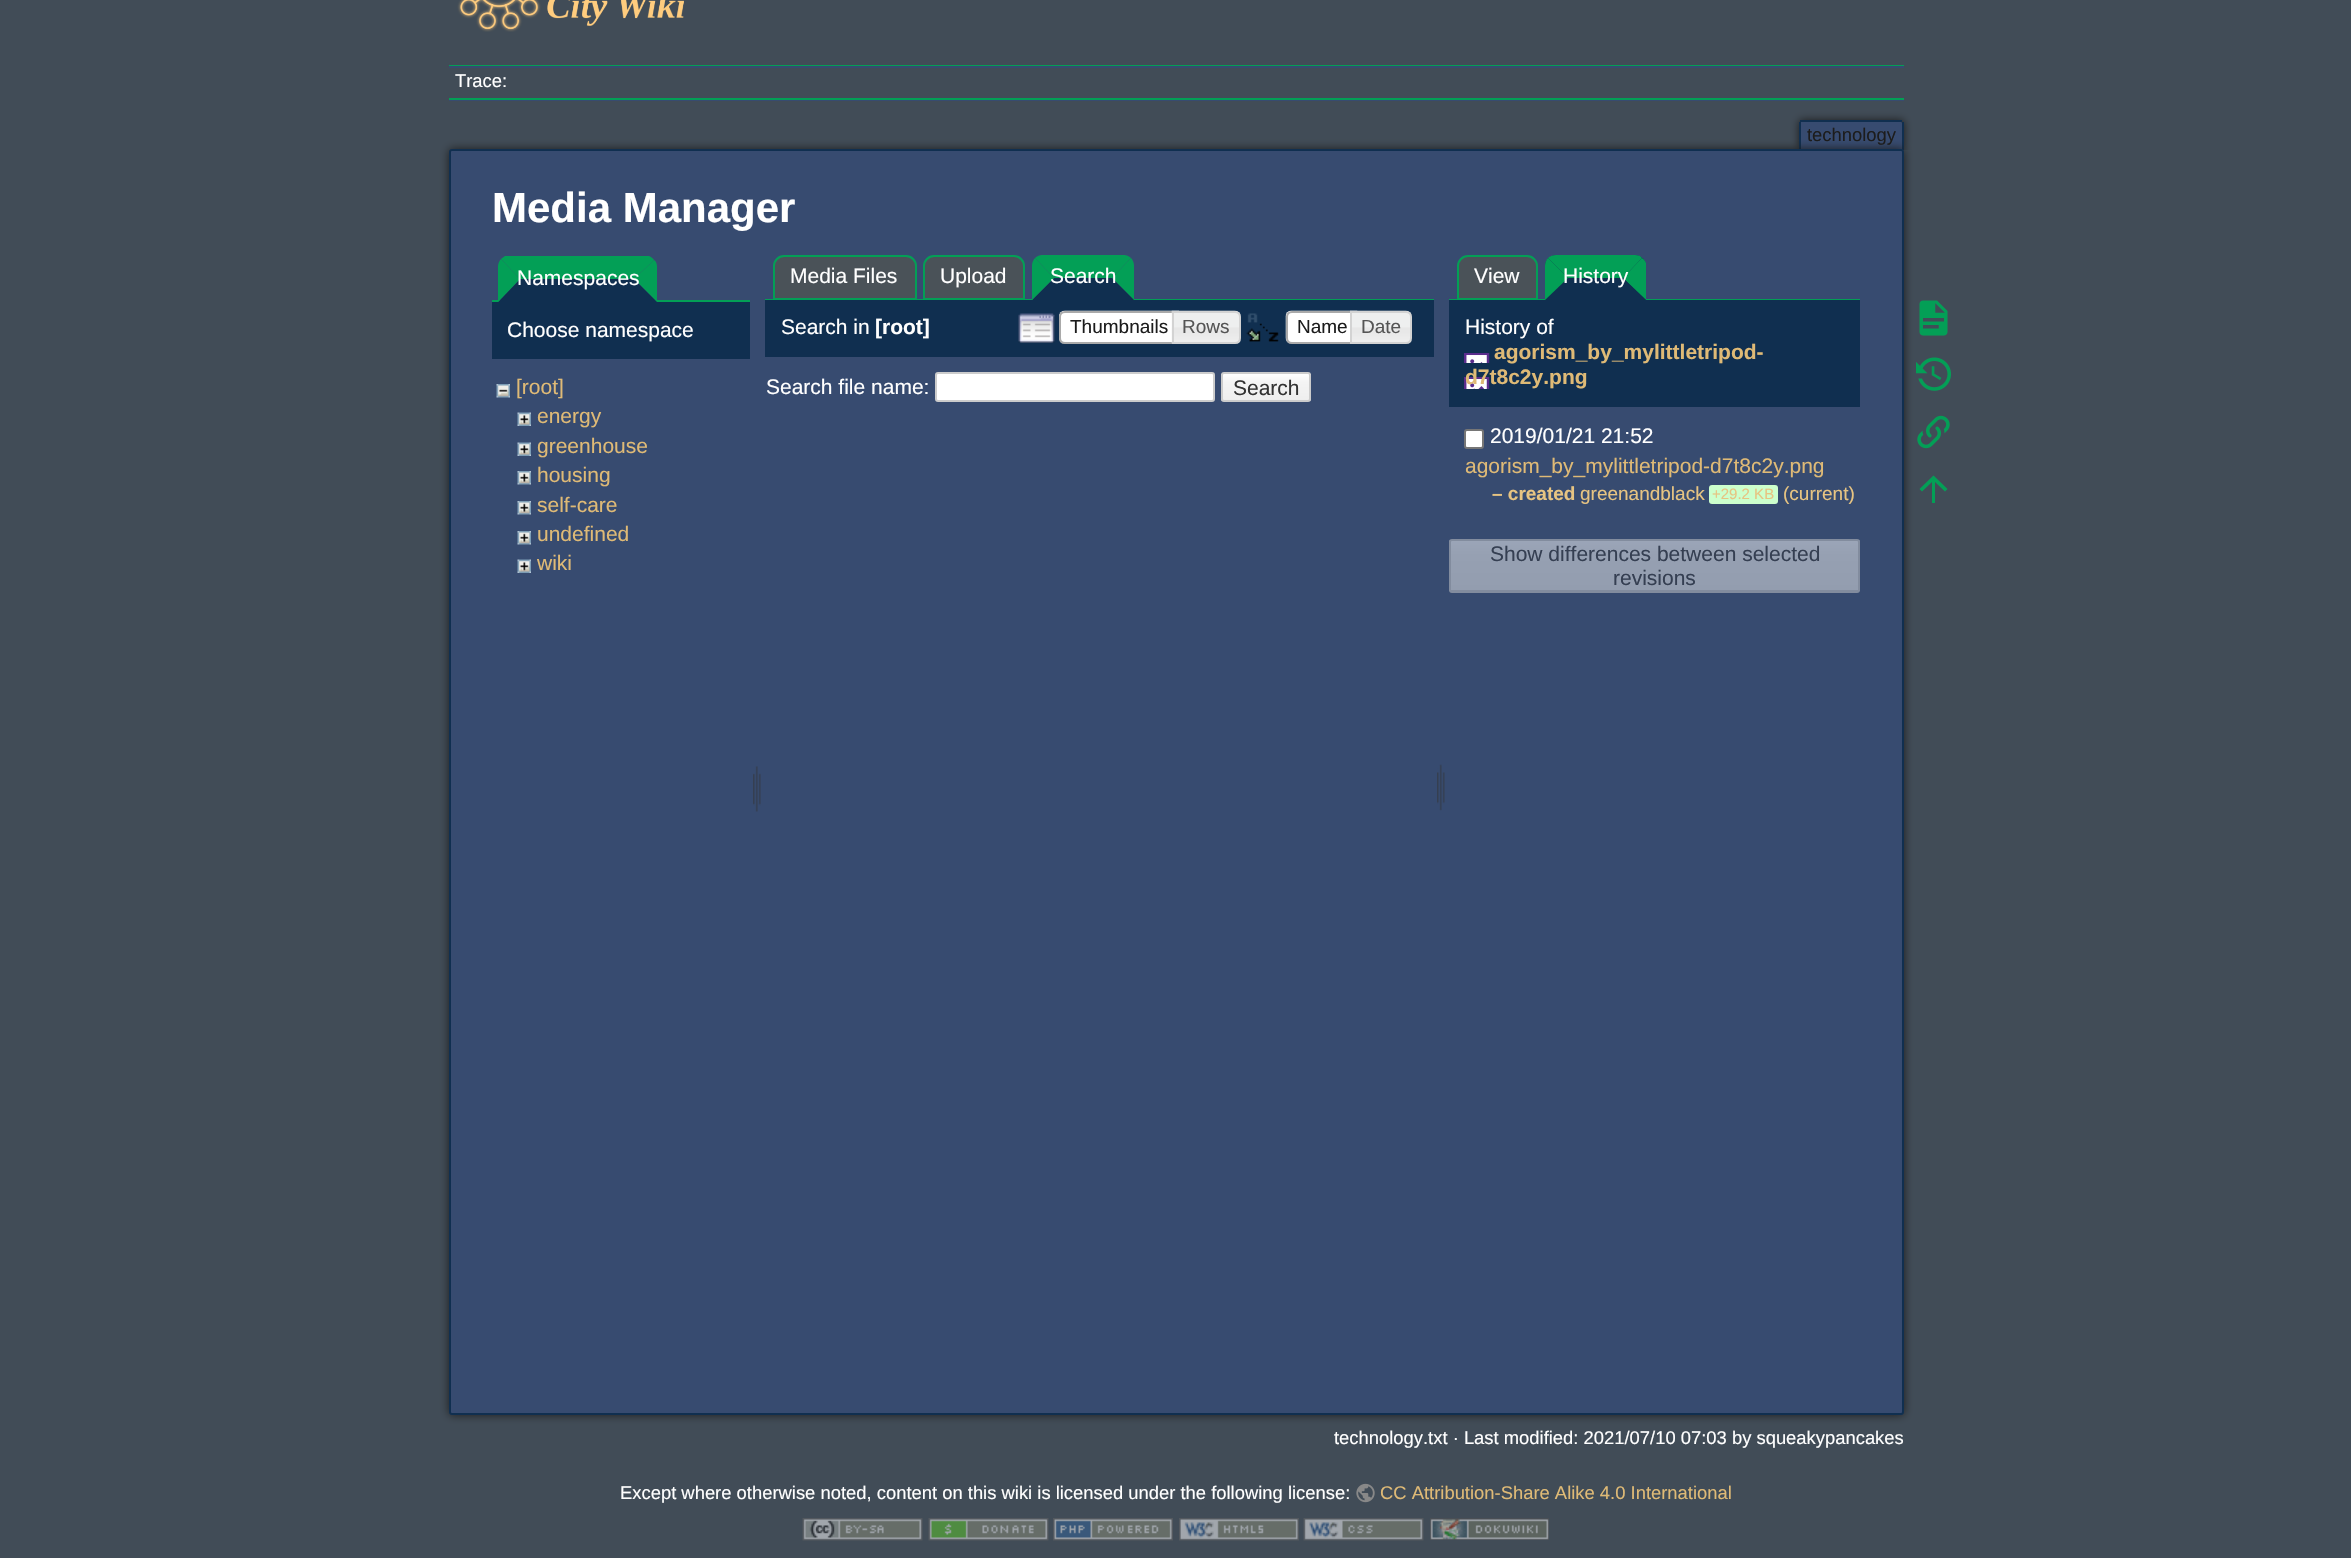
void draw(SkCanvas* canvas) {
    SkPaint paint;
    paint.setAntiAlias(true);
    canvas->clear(0xFF414C57);
    canvas->drawImageRect(SkImages::DeferredFromEncodedData(SkData::MakeFromFileName("img1.png")), SkRect::MakeXYWH(457, 0, 227, 32), SkSamplingOptions());
    paint.setColor(0xFF039F56);
    canvas->drawRect(SkRect::MakeXYWH(449, 65, 1455, 1), paint);
    paint.setColor(0xFF374B70);
    canvas->drawRect(SkRect::MakeXYWH(449, 100, 1455, 1), paint);
    canvas->drawRect(SkRect::MakeXYWH(449, 66, 1455, 2), paint);
    paint.setColor(0xFF039F56);
    canvas->drawRect(SkRect::MakeXYWH(449, 98, 1455, 2), paint);
    SkFont font1(fontMgr->matchFamilyStyle("Liberation Sans", SkFontStyle::Normal()), 18.4f);
    font1.setSubpixel(true);
    paint.setColor(0xFFFFFFFF);
    canvas->drawString("Trace:", 455, 87, font1, paint);
    canvas->save();
    canvas->clipRect(SkRect::MakeXYWH(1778, 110, 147, 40));
    paint.setColor(0xFF1C1C1C);
    paint.setMaskFilter(SkMaskFilter::MakeBlur(kNormal_SkBlurStyle, 4.5f));
    canvas->drawRoundRect(SkRect::MakeXYWH(1799, 120, 105, 30), 3, 3, paint);
    paint.setMaskFilter(nullptr);
    canvas->restore();
    paint.setColor(0xFF374B70);
    canvas->drawPath(SkPathBuilder().moveTo(1801.5f, 122).lineTo(1900.5f, 122).cubicTo(1901.5f, 122, 1902, 122.5f, 1902, 123.5f).lineTo(1902, 150).lineTo(1800, 150).lineTo(1800, 123.5f).cubicTo(1800, 122.5f, 1800.5f, 122, 1801.5f, 122).close().detach(), paint);
    paint.setColor(0xFF102F50);
    canvas->drawRect(SkRect::MakeXYWH(1800, 120, 102, 2), paint);
    canvas->drawRect(SkRect::MakeXYWH(1902, 122, 2, 28), paint);
    canvas->drawRect(SkRect::MakeXYWH(1799, 122, 2, 28), paint);
    paint.setColor(0xFF1C1C1C);
    canvas->drawString("technology", 1807, 141, font1, paint);
    paint.setMaskFilter(SkMaskFilter::MakeBlur(kNormal_SkBlurStyle, 5));
    canvas->drawRoundRect(SkRect::MakeXYWH(449, 149, 1455, 1266), 3, 3, paint);
    paint.setMaskFilter(nullptr);
    paint.setColor(0xFF374B70);
    canvas->drawRoundRect(SkRect::MakeXYWH(450, 150, 1453, 1264), 2, 2, paint);
    paint.setStyle(SkPaint::kStroke_Style);
    paint.setStrokeWidth(2);
    paint.setColor(0xFF102F50);
    canvas->drawRoundRect(SkRect::MakeXYWH(450, 150, 1453, 1264), 2, 2, paint);
    SkFont font2(fontMgr->matchFamilyStyle("Liberation Sans", SkFontStyle::Bold()), 42);
    font2.setSubpixel(true);
    paint.setStyle(SkPaint::kFill_Style);
    paint.setColor(0xFFFFFFFF);
    canvas->drawString("Media Manager", 492, 222, font2, paint);
    paint.setColor(0xFF039F56);
    canvas->drawPath(SkPathBuilder().moveTo(649, 256).lineTo(505, 256).lineTo(501, 259).lineTo(520, 279).lineTo(634, 279).lineTo(654, 260).cubicTo(653, 258, 651, 257, 649, 256).close().detach(), paint);
    canvas->drawRect(SkRect::MakeXYWH(492, 300, 258, 2), paint);
    canvas->drawPath(SkPathBuilder().moveTo(654, 260).lineTo(634, 279).lineTo(657, 302).lineTo(657, 267).cubicTo(657, 264, 656, 261, 654, 260).close().detach(), paint);
    paint.setColor(0xFF102F50);
    canvas->drawPath(SkPathBuilder().moveTo(657, 302).lineTo(634, 279).lineTo(520, 279).lineTo(498, 302).close().detach(), paint);
    paint.setColor(0xFF039F56);
    canvas->drawPath(SkPathBuilder().moveTo(498, 302).lineTo(520, 279).lineTo(501, 259).cubicTo(499, 261, 498, 264, 498, 267).close().detach(), paint);
    SkFont font3(fontMgr->matchFamilyStyle("Liberation Sans", SkFontStyle::Normal()), 21);
    font3.setSubpixel(true);
    paint.setColor(0xFFFFFFFF);
    canvas->drawString("Namespaces", 517, 285, font3, paint);
    paint.setColor(0xFF102F50);
    canvas->drawRect(SkRect::MakeXYWH(492, 302, 258, 57), paint);
    paint.setColor(0xFFFFFFFF);
    canvas->drawString("Choose namespace", 507, 337, font3, paint);
    canvas->drawImageRect(SkImages::DeferredFromEncodedData(SkData::MakeFromFileName("img2.png")), SkRect::MakeXYWH(496, 384, 14, 14), SkSamplingOptions());
    paint.setColor(0xFFDFBA76);
    canvas->drawString("[root]", 516, 394, font3, paint);
    canvas->drawImageRect(SkImages::DeferredFromEncodedData(SkData::MakeFromFileName("img3.png")), SkRect::MakeXYWH(517, 412, 14, 14), SkSamplingOptions());
    canvas->drawString("energy", 537, 423, font3, paint);
    canvas->drawImageRect(SkImages::DeferredFromEncodedData(SkData::MakeFromFileName("img3.png")), SkRect::MakeXYWH(517, 442, 14, 14), SkSamplingOptions());
    canvas->drawString("greenhouse", 537, 453, font3, paint);
    canvas->drawImageRect(SkImages::DeferredFromEncodedData(SkData::MakeFromFileName("img4.png")), SkRect::MakeXYWH(517, 471, 14, 14), SkSamplingOptions());
    canvas->drawString("housing", 537, 482, font3, paint);
    canvas->drawImageRect(SkImages::DeferredFromEncodedData(SkData::MakeFromFileName("img4.png")), SkRect::MakeXYWH(517, 501, 14, 14), SkSamplingOptions());
    canvas->drawString("self-care", 537, 512, font3, paint);
    canvas->drawImageRect(SkImages::DeferredFromEncodedData(SkData::MakeFromFileName("img4.png")), SkRect::MakeXYWH(517, 531, 14, 14), SkSamplingOptions());
    canvas->drawString("undefined", 537, 541, font3, paint);
    canvas->drawImageRect(SkImages::DeferredFromEncodedData(SkData::MakeFromFileName("img3.png")), SkRect::MakeXYWH(517, 559, 14, 14), SkSamplingOptions());
    canvas->drawString("wiki", 537, 570, font3, paint);
    canvas->drawImageRect(SkImages::DeferredFromEncodedData(SkData::MakeFromFileName("img5.png")), SkRect::MakeXYWH(753, 766, 8, 46), SkSamplingOptions());
    paint.setColor(0xFF4A5258);
    canvas->drawPath(SkPathBuilder().moveTo(784, 256).lineTo(906, 256).cubicTo(911.5f, 256, 916, 260.5f, 916, 266).lineTo(916, 299).lineTo(774, 299).lineTo(774, 266).cubicTo(774, 260.5f, 778.5f, 256, 784, 256).close().detach(), paint);
    paint.setStyle(SkPaint::kStroke_Style);
    paint.setColor(0xFF039F56);
    canvas->drawPath(SkPathBuilder().moveTo(784, 256).lineTo(906, 256).cubicTo(911.5f, 256, 916, 260.5f, 916, 266).lineTo(916, 299).lineTo(774, 299).lineTo(774, 266).cubicTo(774, 260.5f, 778.5f, 256, 784, 256).close().detach(), paint);
    paint.setStyle(SkPaint::kFill_Style);
    paint.setColor(0xFFFFFFFF);
    canvas->drawString("Media Files", 790, 283, font3, paint);
    paint.setColor(0xFF4A5258);
    canvas->drawPath(SkPathBuilder().moveTo(934, 256).lineTo(1014, 256).cubicTo(1019.5f, 256, 1024, 260.5f, 1024, 266).lineTo(1024, 299).lineTo(924, 299).lineTo(924, 266).cubicTo(924, 260.5f, 928.5f, 256, 934, 256).close().detach(), paint);
    paint.setStyle(SkPaint::kStroke_Style);
    paint.setColor(0xFF039F56);
    canvas->drawPath(SkPathBuilder().moveTo(934, 256).lineTo(1014, 256).cubicTo(1019.5f, 256, 1024, 260.5f, 1024, 266).lineTo(1024, 299).lineTo(924, 299).lineTo(924, 266).cubicTo(924, 260.5f, 928.5f, 256, 934, 256).close().detach(), paint);
    paint.setStyle(SkPaint::kFill_Style);
    paint.setColor(0xFFFFFFFF);
    canvas->drawString("Upload", 940, 283, font3, paint);
    paint.setColor(0xFF039F56);
    canvas->drawPath(SkPathBuilder().moveTo(1042, 255).lineTo(1124, 255).cubicTo(1126, 255, 1129, 256, 1131, 258).lineTo(1112, 278).lineTo(1054, 278).lineTo(1035, 258).cubicTo(1037, 256, 1040, 255, 1042, 255).close().detach(), paint);
    canvas->drawRect(SkRect::MakeXYWH(765, 299, 669, 1), paint);
    canvas->drawPath(SkPathBuilder().moveTo(1131, 258).lineTo(1112, 278).lineTo(1134, 300).lineTo(1134, 266).cubicTo(1134, 263, 1133, 260, 1131, 258).close().detach(), paint);
    paint.setColor(0xFF102F50);
    canvas->drawPath(SkPathBuilder().moveTo(1134, 300).lineTo(1112, 278).lineTo(1054, 278).lineTo(1032, 300).close().detach(), paint);
    paint.setColor(0xFF039F56);
    canvas->drawPath(SkPathBuilder().moveTo(1032, 300).lineTo(1032, 266).cubicTo(1032, 263, 1033, 260, 1035, 258).lineTo(1054, 278).close().detach(), paint);
    paint.setColor(0xFFFFFFFF);
    canvas->drawString("Search", 1050, 283, font3, paint);
    paint.setColor(0xFF102F50);
    canvas->drawRect(SkRect::MakeXYWH(765, 300, 669, 57), paint);
    paint.setColor(0xFFFFFFFF);
    canvas->drawString("Search in", 781, 334, font3, paint);
    SkFont font4(fontMgr->matchFamilyStyle("Liberation Sans", SkFontStyle::Bold()), 21);
    font4.setSubpixel(true);
    canvas->drawString("[root]", 875, 334, font4, paint);
    canvas->drawImageRect(SkImages::DeferredFromEncodedData(SkData::MakeFromFileName("img6.png")), SkRect::MakeXYWH(1018, 313, 37, 30), SkSamplingOptions());
    canvas->drawImageRect(SkImages::DeferredFromEncodedData(SkData::MakeFromFileName("img7.png")), SkRect::MakeXYWH(1059, 310, 120, 34), SkSamplingOptions());
    paint.setStyle(SkPaint::kStroke_Style);
    paint.setColor(0xFFAAAAAA);
    canvas->drawPath(SkPathBuilder().moveTo(1065, 312).lineTo(1178, 312).lineTo(1178, 343).lineTo(1065, 343).cubicTo(1062, 343, 1060, 341, 1060, 338).lineTo(1060, 317).cubicTo(1060, 314, 1062, 312, 1065, 312).close().detach(), paint);
    SkFont font5(fontMgr->matchFamilyStyle("Liberation Sans", SkFontStyle::Normal()), 19);
    font5.setSubpixel(true);
    paint.setStyle(SkPaint::kFill_Style);
    paint.setColor(0xFF1C1C1C);
    canvas->drawString("Thumbnails", 1070, 333, font5, paint);
    canvas->drawImageRect(SkImages::DeferredFromEncodedData(SkData::MakeFromFileName("img8.png")), SkRect::MakeXYWH(1171, 310, 70, 34), SkSamplingOptions());
    paint.setStyle(SkPaint::kStroke_Style);
    paint.setColor(0xFFD3D3D3);
    canvas->drawPath(SkPathBuilder().moveTo(1173, 312).lineTo(1235, 312).cubicTo(1238, 312, 1240, 314, 1240, 317).lineTo(1240, 338).cubicTo(1240, 341, 1238, 343, 1235, 343).lineTo(1173, 343).close().detach(), paint);
    paint.setStyle(SkPaint::kFill_Style);
    paint.setColor(0xFF555555);
    canvas->drawString("Rows", 1182, 333, font5, paint);
    canvas->drawImageRect(SkImages::DeferredFromEncodedData(SkData::MakeFromFileName("img9.png")), SkRect::MakeXYWH(1246, 313, 33, 29), SkSamplingOptions());
    canvas->drawImageRect(SkImages::DeferredFromEncodedData(SkData::MakeFromFileName("img10.png")), SkRect::MakeXYWH(1285, 310, 73, 34), SkSamplingOptions());
    paint.setStyle(SkPaint::kStroke_Style);
    paint.setColor(0xFFAAAAAA);
    canvas->drawPath(SkPathBuilder().moveTo(1292, 312).lineTo(1357, 312).lineTo(1357, 343).lineTo(1292, 343).cubicTo(1289, 343, 1287, 341, 1287, 338).lineTo(1287, 317).cubicTo(1287, 314, 1289, 312, 1292, 312).close().detach(), paint);
    paint.setStyle(SkPaint::kFill_Style);
    paint.setColor(0xFF1C1C1C);
    canvas->drawString("Name", 1297, 333, font5, paint);
    canvas->drawImageRect(SkImages::DeferredFromEncodedData(SkData::MakeFromFileName("img11.png")), SkRect::MakeXYWH(1350, 310, 62, 33), SkSamplingOptions());
    paint.setStyle(SkPaint::kStroke_Style);
    paint.setColor(0xFFD3D3D3);
    canvas->drawPath(SkPathBuilder().moveTo(1351, 312).lineTo(1406, 312).cubicTo(1409, 312, 1411, 314, 1411, 317).lineTo(1411, 338).cubicTo(1411, 341, 1409, 343, 1406, 343).lineTo(1351, 343).close().detach(), paint);
    paint.setStyle(SkPaint::kFill_Style);
    paint.setColor(0xFF555555);
    canvas->drawString("Date", 1361, 333, font5, paint);
    paint.setColor(0xFFFFFFFF);
    canvas->drawString("Search file name:", 766, 394, font3, paint);
    canvas->drawRoundRect(SkRect::MakeXYWH(936, 373, 278, 28), 2, 2, paint);
    paint.setStyle(SkPaint::kStroke_Style);
    paint.setColor(0xFFCCCCCC);
    canvas->drawRoundRect(SkRect::MakeXYWH(936, 373, 278, 28), 2, 2, paint);
    canvas->save();
    canvas->clipPath(SkPathBuilder().moveTo(1224, 372).lineTo(1308, 372).cubicTo(1309.5f, 372, 1311, 373.5f, 1311, 375).lineTo(1311, 399).cubicTo(1311, 400.5f, 1309.5f, 402, 1308, 402).lineTo(1224, 402).cubicTo(1222.5f, 402, 1221, 400.5f, 1221, 399).lineTo(1221, 375).cubicTo(1221, 373.5f, 1222.5f, 372, 1224, 372).close().detach(), true);
    paint.setStyle(SkPaint::kFill_Style);
    {
        const SkColor colors[] = {0xFFFFFFFF, 0xFFF4F4F4, 0xFFEEEEEE, 0xFFCCCCCC};
        const float stops[] = {0, 0.3f, 0.99f, 0.99f};
        const SkPoint ends[] = {{1266, 374}, {1266, 401}};
        paint.setShader(SkGradientShader::MakeLinear(ends, colors, stops, 4, SkTileMode::kClamp));
        paint.setAlpha(255);
    }
    canvas->drawRect(SkRect::MakeXYWH(1221, 374, 90, 27), paint);
    canvas->restore();
    paint.setStyle(SkPaint::kStroke_Style);
    paint.setShader(nullptr);
    paint.setColor(0xFFCCCCCC);
    canvas->drawRoundRect(SkRect::MakeXYWH(1222, 373, 88, 28), 2, 2, paint);
    paint.setStyle(SkPaint::kFill_Style);
    paint.setColor(0xFF333333);
    canvas->drawString("Search", 1233, 395, font3, paint);
    canvas->drawImageRect(SkImages::DeferredFromEncodedData(SkData::MakeFromFileName("img12.png")), SkRect::MakeXYWH(1437, 764, 8, 47), SkSamplingOptions());
    paint.setColor(0xFF4A5258);
    canvas->drawPath(SkPathBuilder().moveTo(1468, 256).lineTo(1527, 256).cubicTo(1532.5f, 256, 1537, 260.5f, 1537, 266).lineTo(1537, 299).lineTo(1458, 299).lineTo(1458, 266).cubicTo(1458, 260.5f, 1462.5f, 256, 1468, 256).close().detach(), paint);
    paint.setStyle(SkPaint::kStroke_Style);
    paint.setColor(0xFF039F56);
    canvas->drawPath(SkPathBuilder().moveTo(1468, 256).lineTo(1527, 256).cubicTo(1532.5f, 256, 1537, 260.5f, 1537, 266).lineTo(1537, 299).lineTo(1458, 299).lineTo(1458, 266).cubicTo(1458, 260.5f, 1462.5f, 256, 1468, 256).close().detach(), paint);
    paint.setStyle(SkPaint::kFill_Style);
    paint.setColor(0xFFFFFFFF);
    canvas->drawString("View", 1474, 283, font3, paint);
    paint.setColor(0xFF039F56);
    canvas->drawRect(SkRect::MakeXYWH(1449, 299, 411, 1), paint);
    paint.setColor(0xFF102F50);
    canvas->drawPath(SkPathBuilder().moveTo(1556, 255).lineTo(1635, 255).cubicTo(1641, 255, 1646, 260, 1646, 266).lineTo(1646, 300).lineTo(1545, 300).lineTo(1545, 266).cubicTo(1545, 260, 1550, 255, 1556, 255).close().detach(), paint);
    paint.setColor(0xFF039F56);
    canvas->drawPath(SkPathBuilder().moveTo(1556, 255).lineTo(1635, 255).cubicTo(1638, 255, 1641, 256, 1642, 258).lineTo(1623, 278).lineTo(1568, 278).lineTo(1548, 258).cubicTo(1550, 256, 1553, 255, 1556, 255).close().detach(), paint);
    canvas->drawPath(SkPathBuilder().moveTo(1642, 258).lineTo(1623, 278).lineTo(1646, 300).lineTo(1646, 263).cubicTo(1645, 261, 1644, 259, 1642, 258).close().detach(), paint);
    paint.setColor(0xFF102F50);
    canvas->drawPath(SkPathBuilder().moveTo(1646, 300).lineTo(1623, 278).lineTo(1568, 278).lineTo(1545, 300).close().detach(), paint);
    paint.setColor(0xFF039F56);
    canvas->drawPath(SkPathBuilder().moveTo(1545, 300).lineTo(1545, 266).cubicTo(1545, 263, 1546, 260, 1548, 258).lineTo(1568, 278).close().detach(), paint);
    paint.setColor(0xFFFFFFFF);
    canvas->drawString("History", 1563, 283, font3, paint);
    paint.setColor(0xFF102F50);
    canvas->drawRect(SkRect::MakeXYWH(1449, 300, 411, 107), paint);
    paint.setColor(0xFFFFFFFF);
    canvas->drawString("History of", 1465, 334, font3, paint);
    canvas->drawImageRect(SkImages::DeferredFromEncodedData(SkData::MakeFromFileName("img13.png")), SkRect::MakeXYWH(1464, 353, 26, 36), SkSamplingOptions());
    paint.setColor(0xFFDFBA76);
    canvas->drawString("agorism_by_mylittletripod-", 1494, 359, font4, paint);
    canvas->drawString("d7t8c2y.png", 1465, 384, font4, paint);
    paint.setColor(0xFFFFFFFF);
    canvas->drawRoundRect(SkRect::MakeXYWH(1465, 430, 18, 18), 2, 2, paint);
    paint.setStyle(SkPaint::kStroke_Style);
    paint.setColor(0xFF767676);
    canvas->drawRoundRect(SkRect::MakeXYWH(1465, 430, 18, 18), 2, 2, paint);
    paint.setStyle(SkPaint::kFill_Style);
    paint.setColor(0xFFFFFFFF);
    canvas->drawString("2019/01/21 21:52", 1490, 443, font3, paint);
    paint.setColor(0xFFDFBA76);
    canvas->drawString("agorism_by_mylittletripod-d7t8c2y.png", 1465, 473, font3, paint);
    SkFont font6(fontMgr->matchFamilyStyle("Liberation Sans", SkFontStyle::Bold()), 19);
    font6.setSubpixel(true);
    paint.setColor(0xFFE7C482);
    canvas->drawString("– created", 1492, 500, font6, paint);
    canvas->drawString("greenandblack", 1580, 500, font5, paint);
    paint.setColor(0xFFCCFFCC);
    canvas->drawRoundRect(SkRect::MakeXYWH(1709, 485, 69, 19), 3, 3, paint);
    SkFont font7(fontMgr->matchFamilyStyle("Liberation Sans", SkFontStyle::Normal()), 15);
    font7.setSubpixel(true);
    paint.setColor(0xFFE7C482);
    canvas->drawString("+29.2 KB", 1712, 499, font7, paint);
    canvas->drawString("(current)", 1783, 500, font5, paint);
    canvas->save();
    canvas->clipPath(SkPathBuilder().moveTo(1452, 539).lineTo(1857, 539).cubicTo(1858.5f, 539, 1860, 540.5f, 1860, 542).lineTo(1860, 590).cubicTo(1860, 591.5f, 1858.5f, 593, 1857, 593).lineTo(1452, 593).cubicTo(1450.5f, 593, 1449, 591.5f, 1449, 590).lineTo(1449, 542).cubicTo(1449, 540.5f, 1450.5f, 539, 1452, 539).close().detach(), true);
    {
        const SkColor colors[] = {0xFF9BA5B8, 0xFF96A0B2, 0xFF939DAF, 0xFF828C9E};
        const float stops[] = {0, 0.3f, 0.99f, 0.99f};
        const SkPoint ends[] = {{1655, 540}, {1655, 591}};
        paint.setShader(SkGradientShader::MakeLinear(ends, colors, stops, 4, SkTileMode::kClamp));
        paint.setAlpha(255);
    }
    canvas->drawRect(SkRect::MakeXYWH(1449, 540, 411, 51), paint);
    canvas->restore();
    paint.setStyle(SkPaint::kStroke_Style);
    paint.setShader(nullptr);
    paint.setColor(0xFF828C9E);
    canvas->drawRoundRect(SkRect::MakeXYWH(1450, 540, 409, 52), 2, 2, paint);
    paint.setStyle(SkPaint::kFill_Style);
    paint.setColor(0xFF353F52);
    canvas->drawString("Show differences between selected", 1490, 561, font3, paint);
    canvas->drawString("revisions", 1613, 585, font3, paint);
    paint.setColor(0xFFFFFFFF);
    canvas->drawString("technology.txt · Last modified: 2021/07/10 07:03 by squeakypancakes", 1334, 1444, font1, paint);
    canvas->drawImageRect(SkImages::DeferredFromEncodedData(SkData::MakeFromFileName("img14.png")), SkRect::MakeXYWH(1919, 300, 29, 36), SkSamplingOptions());
    canvas->drawImageRect(SkImages::DeferredFromEncodedData(SkData::MakeFromFileName("img15.png")), SkRect::MakeXYWH(1916, 357, 35, 34), SkSamplingOptions());
    canvas->drawImageRect(SkImages::DeferredFromEncodedData(SkData::MakeFromFileName("img16.png")), SkRect::MakeXYWH(1917, 415, 33, 34), SkSamplingOptions());
    paint.setColor(0xFF039F56);
    canvas->drawPath(SkPathBuilder().moveTo(1935, 503).lineTo(1932, 503).lineTo(1932, 482).lineTo(1922, 491.5f).lineTo(1919.5f, 489).lineTo(1933.5f, 475.5f).lineTo(1947.5f, 489).lineTo(1945, 491.5f).lineTo(1935, 482).close().detach(), paint);
    paint.setColor(0xFFFFFFFF);
    canvas->drawString("Except where otherwise noted, content on this wiki is licensed under the following license:", 620, 1499, font1, paint);
    canvas->drawImageRect(SkImages::DeferredFromEncodedData(SkData::MakeFromFileName("img17.png")), SkRect::MakeXYWH(1356, 1483, 19, 20), SkSamplingOptions());
    paint.setColor(0xFFDFBA76);
    canvas->drawString("CC Attribution-Share Alike 4.0 International", 1380, 1499, font1, paint);
    canvas->drawImageRect(SkImages::DeferredFromEncodedData(SkData::MakeFromFileName("img18.png")), SkRect::MakeXYWH(802, 1518, 121, 23), SkSamplingOptions());
    canvas->drawImageRect(SkImages::DeferredFromEncodedData(SkData::MakeFromFileName("img19.png")), SkRect::MakeXYWH(928, 1518, 121, 23), SkSamplingOptions());
    canvas->drawImageRect(SkImages::DeferredFromEncodedData(SkData::MakeFromFileName("img20.png")), SkRect::MakeXYWH(1053, 1518, 120, 23), SkSamplingOptions());
    canvas->drawImageRect(SkImages::DeferredFromEncodedData(SkData::MakeFromFileName("img21.png")), SkRect::MakeXYWH(1179, 1518, 120, 23), SkSamplingOptions());
    canvas->drawImageRect(SkImages::DeferredFromEncodedData(SkData::MakeFromFileName("img22.png")), SkRect::MakeXYWH(1303, 1518, 121, 23), SkSamplingOptions());
    canvas->drawImageRect(SkImages::DeferredFromEncodedData(SkData::MakeFromFileName("img23.png")), SkRect::MakeXYWH(1430, 1518, 119, 22), SkSamplingOptions());
}
